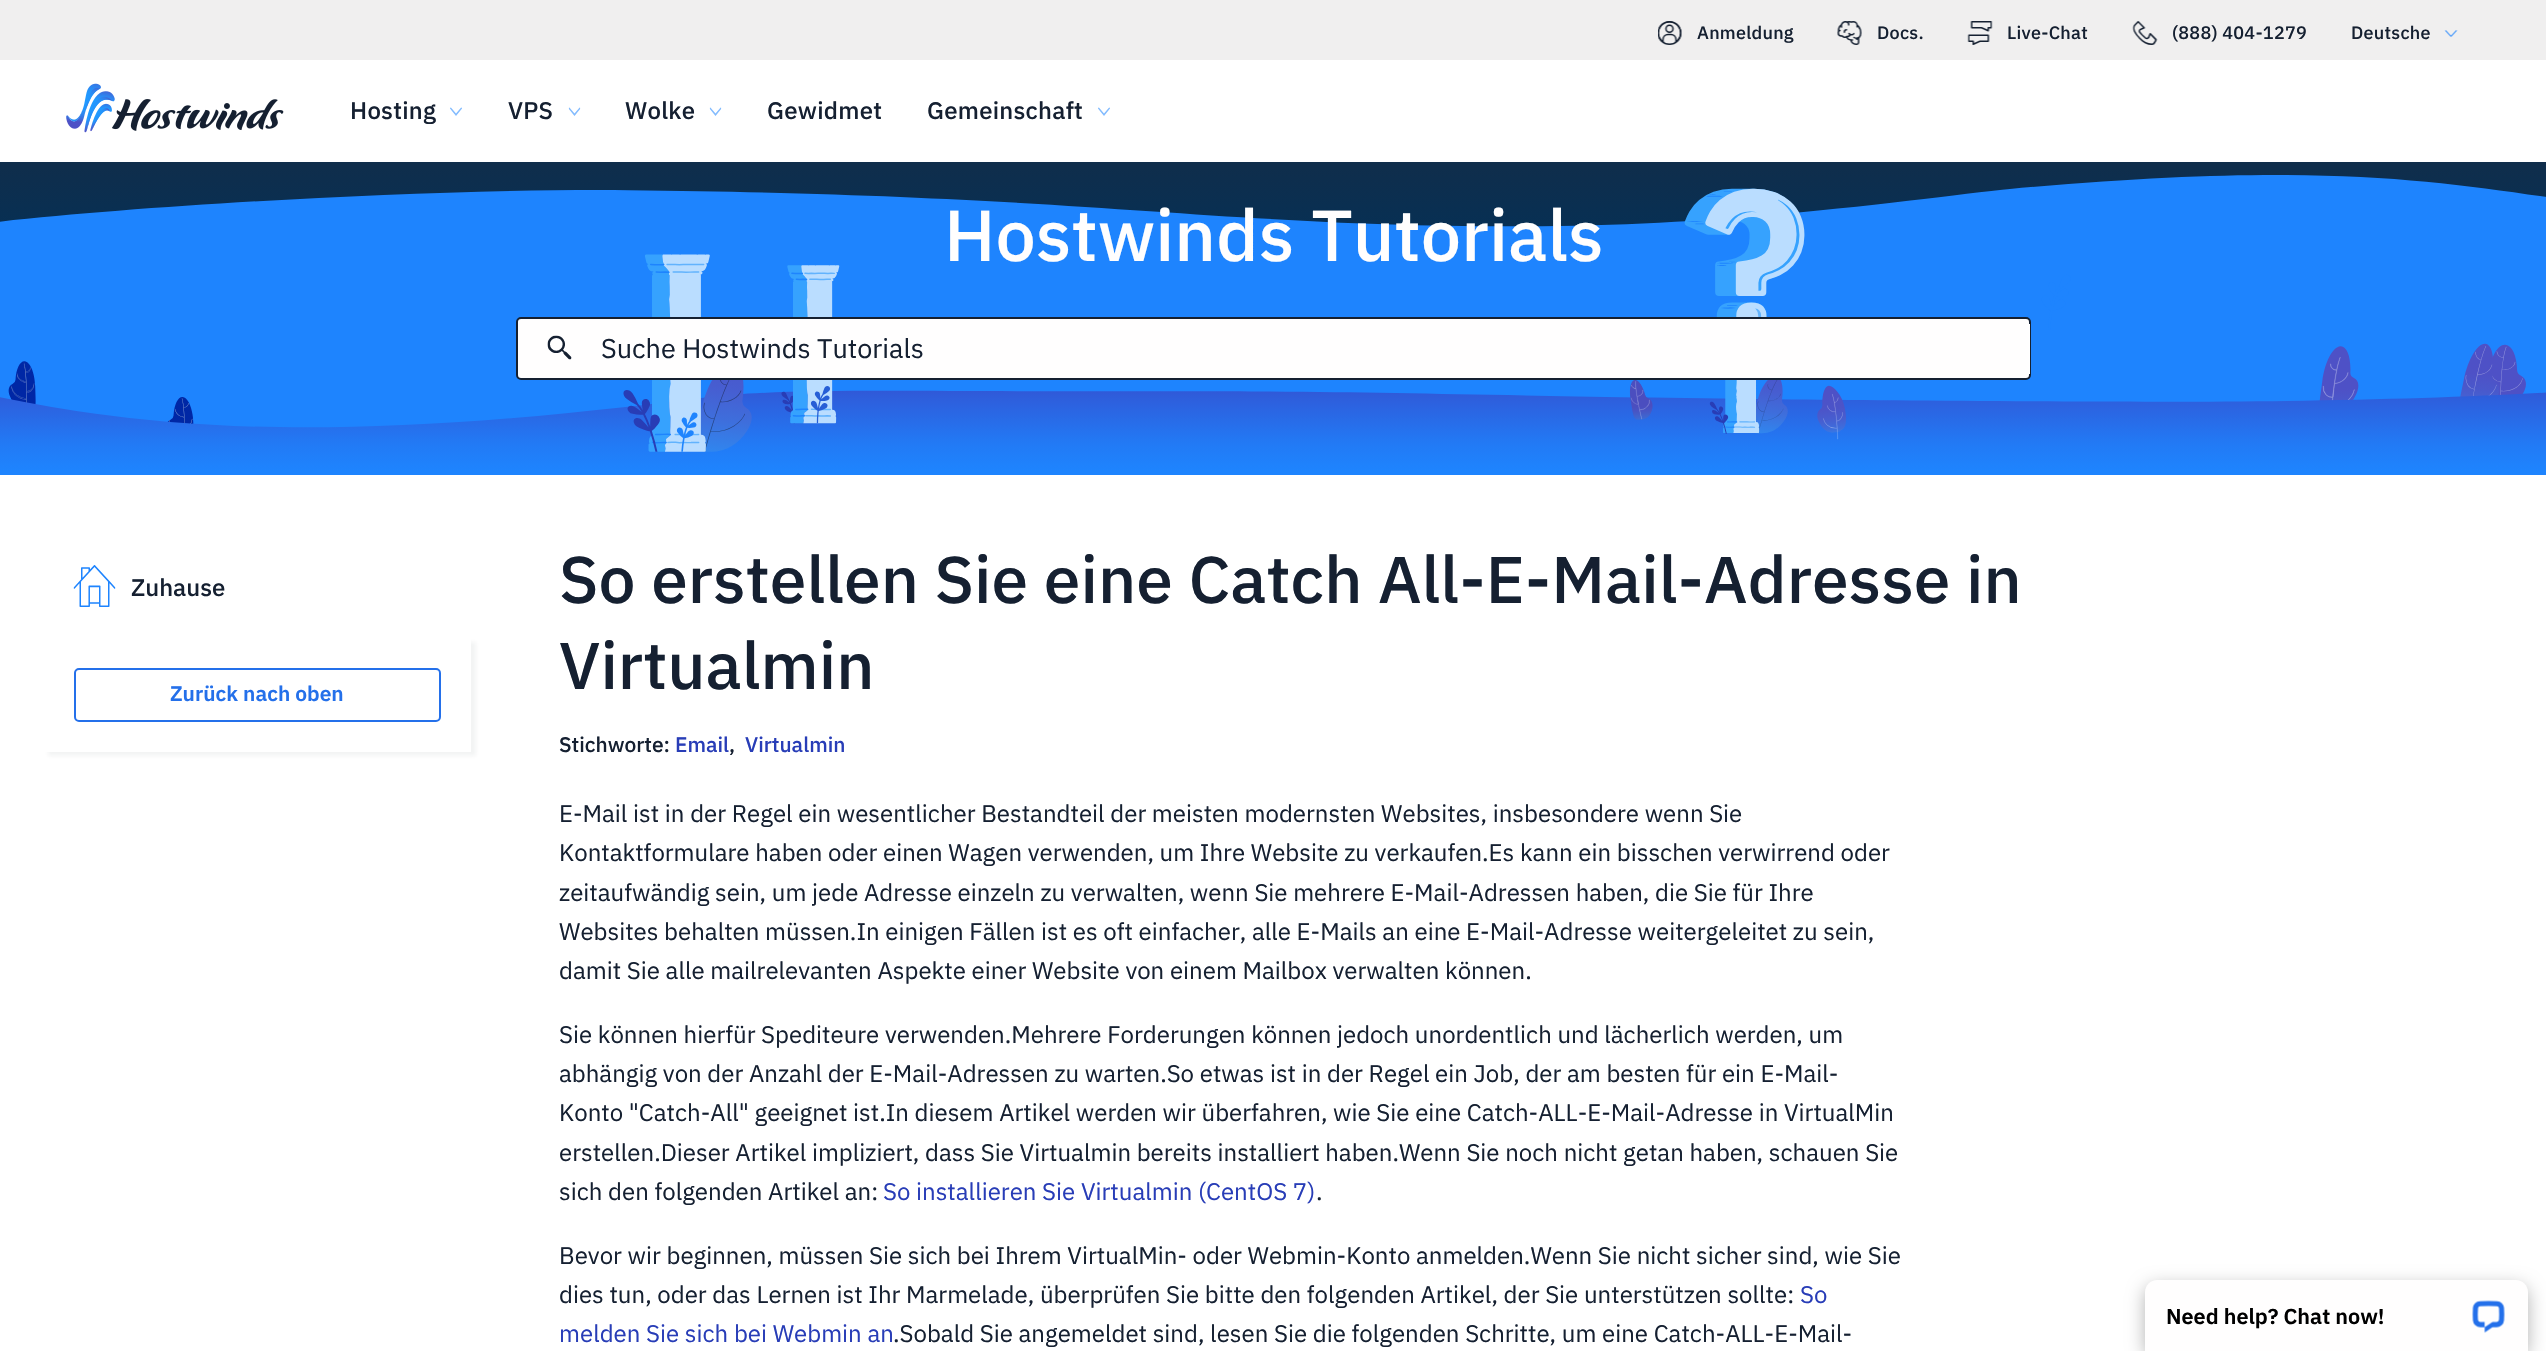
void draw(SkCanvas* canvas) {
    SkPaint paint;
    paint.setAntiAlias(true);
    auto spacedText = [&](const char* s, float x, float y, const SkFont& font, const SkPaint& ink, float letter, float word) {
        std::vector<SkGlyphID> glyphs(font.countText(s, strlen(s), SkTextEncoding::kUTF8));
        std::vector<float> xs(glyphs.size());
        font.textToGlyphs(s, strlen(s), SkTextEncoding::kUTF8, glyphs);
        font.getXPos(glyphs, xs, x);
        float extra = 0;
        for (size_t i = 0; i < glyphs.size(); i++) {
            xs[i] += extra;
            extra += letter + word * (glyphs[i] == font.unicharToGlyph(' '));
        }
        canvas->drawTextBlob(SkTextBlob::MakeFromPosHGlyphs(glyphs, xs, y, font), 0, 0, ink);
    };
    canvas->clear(0xFFFFFFFF);
    paint.setColor(0xFFF0EFEF);
    canvas->drawRect(SkRect::MakeXYWH(0, 0, 2546, 60), paint);
    canvas->drawImageRect(SkImages::DeferredFromEncodedData(SkData::MakeFromFileName("img1.png")), SkRect::MakeXYWH(1658, 21, 24, 24), SkSamplingOptions());
    SkFont font1(fontMgr->matchFamilyStyle("IBM Plex Sans", SkFontStyle(500, SkFontStyle::kNormal_Width, SkFontStyle::kUpright_Slant)), 18);
    font1.setSubpixel(true);
    paint.setColor(0xFF152031);
    spacedText("Anmeldung", 1697, 39, font1, paint, 0.25f, 0);
    canvas->drawImageRect(SkImages::DeferredFromEncodedData(SkData::MakeFromFileName("img2.png")), SkRect::MakeXYWH(1837, 21, 25, 24), SkSamplingOptions());
    spacedText("Docs.", 1877, 39, font1, paint, 0.25f, 0);
    canvas->drawImageRect(SkImages::DeferredFromEncodedData(SkData::MakeFromFileName("img3.png")), SkRect::MakeXYWH(1967, 21, 26, 24), SkSamplingOptions());
    spacedText("Live-Chat", 2007, 39, font1, paint, 0.25f, 0);
    canvas->drawImageRect(SkImages::DeferredFromEncodedData(SkData::MakeFromFileName("img4.png")), SkRect::MakeXYWH(2132, 21, 26, 24), SkSamplingOptions());
    spacedText("(888) 404-1279", 2172, 39, font1, paint, 0.25f, 0);
    spacedText("Deutsche", 2351, 39, font1, paint, 0.25f, 0);
    canvas->drawImageRect(SkImages::DeferredFromEncodedData(SkData::MakeFromFileName("img5.png")), SkRect::MakeXYWH(2444, 30, 14, 7), SkSamplingOptions());
    canvas->drawImageRect(SkImages::DeferredFromEncodedData(SkData::MakeFromFileName("img6.png")), SkRect::MakeXYWH(66, 83, 218, 50), SkSamplingOptions());
    SkFont font2(fontMgr->matchFamilyStyle("IBM Plex Sans", SkFontStyle(500, SkFontStyle::kNormal_Width, SkFontStyle::kUpright_Slant)), 24);
    font2.setSubpixel(true);
    spacedText("Hosting", 350, 119, font2, paint, 0.25f, 0);
    canvas->drawImageRect(SkImages::DeferredFromEncodedData(SkData::MakeFromFileName("img7.png")), SkRect::MakeXYWH(450, 107, 12, 9), SkSamplingOptions());
    spacedText("VPS", 508, 119, font2, paint, 0.25f, 0);
    canvas->drawImageRect(SkImages::DeferredFromEncodedData(SkData::MakeFromFileName("img8.png")), SkRect::MakeXYWH(568, 107, 13, 9), SkSamplingOptions());
    spacedText("Wolke", 625, 119, font2, paint, 0.25f, 0);
    canvas->drawImageRect(SkImages::DeferredFromEncodedData(SkData::MakeFromFileName("img8.png")), SkRect::MakeXYWH(709, 107, 13, 9), SkSamplingOptions());
    spacedText("Gewidmet", 767, 119, font2, paint, 0.25f, 0);
    spacedText("Gemeinschaft", 927, 119, font2, paint, 0.25f, 0);
    canvas->drawImageRect(SkImages::DeferredFromEncodedData(SkData::MakeFromFileName("img7.png")), SkRect::MakeXYWH(1098, 107, 12, 9), SkSamplingOptions());
    canvas->drawImageRect(SkImages::DeferredFromEncodedData(SkData::MakeFromFileName("img9.png")), SkRect::MakeXYWH(0, 162, 2546, 313), SkSamplingOptions());
    SkFont font3(fontMgr->matchFamilyStyle("IBM Plex Sans", SkFontStyle(500, SkFontStyle::kNormal_Width, SkFontStyle::kUpright_Slant)), 72);
    font3.setSubpixel(true);
    paint.setColor(0xFFFFFEFE);
    canvas->drawString("Hostwinds Tutorials", 944, 261, font3, paint);
    canvas->drawRoundRect(SkRect::MakeXYWH(517, 318, 1513, 61), 4, 4, paint);
    paint.setStyle(SkPaint::kStroke_Style);
    paint.setStrokeWidth(2);
    paint.setColor(0xFF152031);
    canvas->drawRoundRect(SkRect::MakeXYWH(517, 318, 1513, 61), 4, 4, paint);
    canvas->drawImageRect(SkImages::DeferredFromEncodedData(SkData::MakeFromFileName("img10.png")), SkRect::MakeXYWH(547, 335, 25, 25), SkSamplingOptions());
    paint.setStyle(SkPaint::kFill_Style);
    paint.setColor(0xFFFFFFFF);
    canvas->drawRect(SkRect::MakeXYWH(2029, 324, 1, 50), paint);
    SkFont font4(fontMgr->matchFamilyStyle("IBM Plex Sans", SkFontStyle::Normal()), 27);
    font4.setSubpixel(true);
    paint.setColor(0xFF152031);
    canvas->drawString("Suche Hostwinds Tutorials", 601, 358, font4, paint);
    canvas->drawImageRect(SkImages::DeferredFromEncodedData(SkData::MakeFromFileName("img11.png")), SkRect::MakeXYWH(73, 565, 43, 42), SkSamplingOptions());
    canvas->drawString("Zuhause", 131, 596, font2, paint);
    canvas->save();
    canvas->clipPath(SkPathBuilder(SkPathFillType::kEvenOdd).moveTo(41, 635).lineTo(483, 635).lineTo(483, 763).lineTo(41, 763).close().moveTo(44, 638).lineTo(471, 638).lineTo(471, 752).lineTo(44, 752).close().detach(), true);
    paint.setColor(0x0D152031);
    paint.setMaskFilter(SkMaskFilter::MakeBlur(kNormal_SkBlurStyle, 2));
    canvas->drawRect(SkRect::MakeXYWH(48, 642, 428, 114), paint);
    paint.setMaskFilter(nullptr);
    canvas->restore();
    paint.setStyle(SkPaint::kStroke_Style);
    paint.setColor(0xFF2470EA);
    canvas->drawRoundRect(SkRect::MakeXYWH(75, 669, 365, 52), 4, 4, paint);
    SkFont font5(fontMgr->matchFamilyStyle("IBM Plex Sans", SkFontStyle(600, SkFontStyle::kNormal_Width, SkFontStyle::kUpright_Slant)), 21);
    font5.setSubpixel(true);
    paint.setStyle(SkPaint::kFill_Style);
    canvas->drawString("Zurück nach oben", 170, 701, font5, paint);
    SkFont font6(fontMgr->matchFamilyStyle("IBM Plex Sans", SkFontStyle(500, SkFontStyle::kNormal_Width, SkFontStyle::kUpright_Slant)), 66);
    font6.setSubpixel(true);
    paint.setColor(0xFF152031);
    canvas->drawString("So erstellen Sie eine Catch All-E-Mail-Adresse in", 559, 603, font6, paint);
    canvas->drawString("Virtualmin", 559, 689, font6, paint);
    SkFont font7(fontMgr->matchFamilyStyle("IBM Plex Sans", SkFontStyle(500, SkFontStyle::kNormal_Width, SkFontStyle::kUpright_Slant)), 21);
    font7.setSubpixel(true);
    canvas->drawString("Stichworte:", 559, 752, font7, paint);
    paint.setColor(0xFF283DB7);
    canvas->drawString("Email", 675, 752, font7, paint);
    paint.setColor(0xFF152031);
    canvas->drawString(",", 729, 752, font7, paint);
    paint.setColor(0xFF283DB7);
    canvas->drawString("Virtualmin", 745, 752, font7, paint);
    SkFont font8(fontMgr->matchFamilyStyle("IBM Plex Sans", SkFontStyle::Normal()), 24);
    font8.setSubpixel(true);
    paint.setColor(0xFF152031);
    canvas->drawString("E-Mail ist in der Regel ein wesentlicher Bestandteil der meisten modernsten Websites, insbesondere wenn Sie", 559, 822, font8, paint);
    canvas->drawString("Kontaktformulare haben oder einen Wagen verwenden, um Ihre Website zu verkaufen.Es kann ein bisschen verwirrend oder", 559, 861, font8, paint);
    canvas->drawString("zeitaufwändig sein, um jede Adresse einzeln zu verwalten, wenn Sie mehrere E-Mail-Adressen haben, die Sie für Ihre", 559, 901, font8, paint);
    canvas->drawString("Websites behalten müssen.In einigen Fällen ist es oft einfacher, alle E-Mails an eine E-Mail-Adresse weitergeleitet zu sein,", 559, 940, font8, paint);
    canvas->drawString("damit Sie alle mailrelevanten Aspekte einer Website von einem Mailbox verwalten können.", 559, 979, font8, paint);
    canvas->drawString("Sie können hierfür Spediteure verwenden.Mehrere Forderungen können jedoch unordentlich und lächerlich werden, um", 559, 1043, font8, paint);
    canvas->drawString("abhängig von der Anzahl der E-Mail-Adressen zu warten.So etwas ist in der Regel ein Job, der am besten für ein E-Mail-", 559, 1082, font8, paint);
    canvas->drawString("Konto \"Catch-All\" geeignet ist.In diesem Artikel werden wir überfahren, wie Sie eine Catch-ALL-E-Mail-Adresse in VirtualMin", 559, 1121, font8, paint);
    canvas->drawString("erstellen.Dieser Artikel impliziert, dass Sie Virtualmin bereits installiert haben.Wenn Sie noch nicht getan haben, schauen Sie", 559, 1161, font8, paint);
    canvas->drawString("sich den folgenden Artikel an:", 559, 1200, font8, paint);
    paint.setColor(0xFF283DB7);
    canvas->drawString("So installieren Sie Virtualmin (CentOS 7)", 883, 1200, font8, paint);
    paint.setColor(0xFF152031);
    canvas->drawString(".", 1316, 1200, font8, paint);
    canvas->drawString("Bevor wir beginnen, müssen Sie sich bei Ihrem VirtualMin- oder Webmin-Konto anmelden.Wenn Sie nicht sicher sind, wie Sie", 559, 1264, font8, paint);
    canvas->drawString("dies tun, oder das Lernen ist Ihr Marmelade, überprüfen Sie bitte den folgenden Artikel, der Sie unterstützen sollte:", 559, 1303, font8, paint);
    paint.setColor(0xFF283DB7);
    canvas->drawString("So", 1800, 1303, font8, paint);
    canvas->drawString("melden Sie sich bei Webmin an", 559, 1342, font8, paint);
    paint.setColor(0xFF152031);
    canvas->drawString(".Sobald Sie angemeldet sind, lesen Sie die folgenden Schritte, um eine Catch-ALL-E-Mail-", 893, 1342, font8, paint);
    paint.setColor(0x4D000000);
    paint.setMaskFilter(SkMaskFilter::MakeBlur(kNormal_SkBlurStyle, 9));
    canvas->drawRoundRect(SkRect::MakeXYWH(2145, 1286, 383, 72), 12, 12, paint);
    paint.setMaskFilter(nullptr);
    paint.setColor(0xFFFFFEFE);
    canvas->drawPath(SkPathBuilder().moveTo(2157, 1280).lineTo(2516, 1280).cubicTo(2522.5f, 1280, 2528, 1285.5f, 2528, 1292).lineTo(2528, 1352).lineTo(2145, 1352).lineTo(2145, 1292).cubicTo(2145, 1285.5f, 2150.5f, 1280, 2157, 1280).close().detach(), paint);
    SkFont font9(fontMgr->matchFamilyStyle("IBM Plex Sans", SkFontStyle(600, SkFontStyle::kNormal_Width, SkFontStyle::kUpright_Slant)), 21.6f);
    font9.setSubpixel(true);
    paint.setColor(0xFF000000);
    canvas->drawString("Need help? Chat now!", 2166, 1324, font9, paint);
    canvas->drawImageRect(SkImages::DeferredFromEncodedData(SkData::MakeFromFileName("img12.png")), SkRect::MakeXYWH(2472, 1300, 33, 33), SkSamplingOptions());
}
